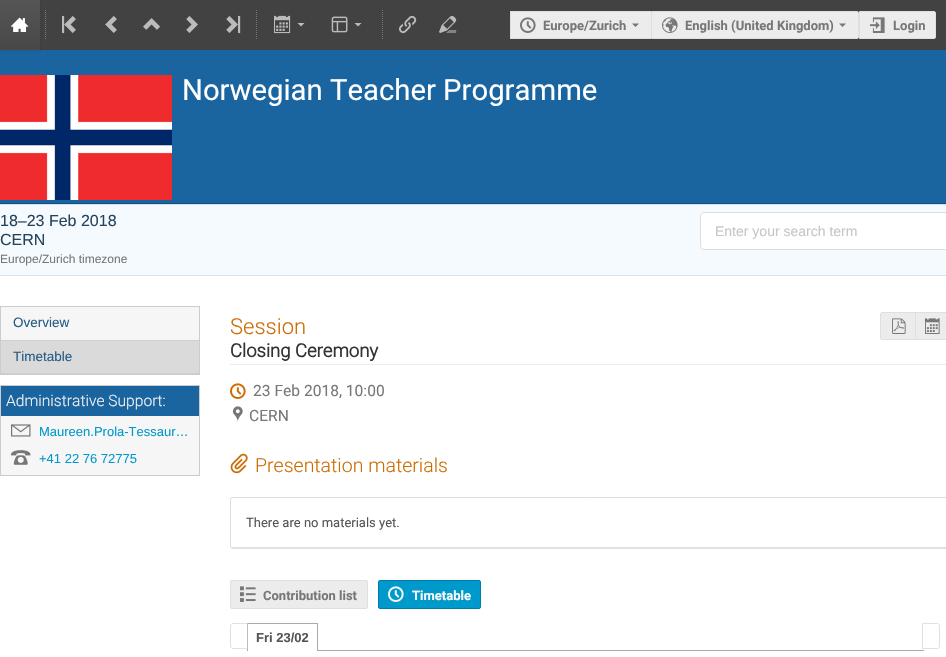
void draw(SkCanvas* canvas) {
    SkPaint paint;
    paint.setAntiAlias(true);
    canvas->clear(0xFFFFFFFF);
    paint.setColor(0xFF424242);
    canvas->drawRect(SkRect::MakeXYWH(40, 0, 906, 50), paint);
    paint.setColor(0xFF1A64A0);
    canvas->drawRect(SkRect::MakeXYWH(0, 50, 946, 153), paint);
    paint.setColor(0x1A141414);
    paint.setMaskFilter(SkMaskFilter::MakeBlur(kNormal_SkBlurStyle, 2));
    canvas->drawRect(SkRect::MakeXYWH(1, 1, 40, 50), paint);
    paint.setMaskFilter(nullptr);
    {
        const SkColor colors[] = {0xFF555555, 0xFF484848};
        const float stops[] = {0, 1};
        const SkPoint ends[] = {{20, 0}, {20, 50}};
        paint.setShader(SkGradientShader::MakeLinear(ends, colors, stops, 2, SkTileMode::kClamp));
        paint.setAlpha(255);
    }
    canvas->drawRect(SkRect::MakeXYWH(0, 0, 40, 50), paint);
    canvas->drawImageRect(SkImages::DeferredFromEncodedData(SkData::MakeFromFileName("img1.png")), SkRect::MakeXYWH(11, 17, 18, 15), SkSamplingOptions());
    paint.setStyle(SkPaint::kStroke_Style);
    paint.setStrokeWidth(1);
    paint.setShader(nullptr);
    paint.setColor(0xFF777777);
    paint.setPathEffect(SkDashPathEffect::Make({{1, 1}}, 0));
    canvas->drawPath(SkPathBuilder().moveTo(45.5f, 10).lineTo(45.5f, 40).detach(), paint);
    paint.setPathEffect(nullptr);
    canvas->drawImageRect(SkImages::DeferredFromEncodedData(SkData::MakeFromFileName("img2.png")), SkRect::MakeXYWH(62, 15, 14, 19), SkSamplingOptions());
    canvas->drawImageRect(SkImages::DeferredFromEncodedData(SkData::MakeFromFileName("img3.png")), SkRect::MakeXYWH(105, 16, 12, 17), SkSamplingOptions());
    canvas->drawImageRect(SkImages::DeferredFromEncodedData(SkData::MakeFromFileName("img4.png")), SkRect::MakeXYWH(143, 18, 17, 12), SkSamplingOptions());
    canvas->drawImageRect(SkImages::DeferredFromEncodedData(SkData::MakeFromFileName("img5.png")), SkRect::MakeXYWH(186, 16, 12, 17), SkSamplingOptions());
    canvas->drawImageRect(SkImages::DeferredFromEncodedData(SkData::MakeFromFileName("img6.png")), SkRect::MakeXYWH(226, 15, 15, 19), SkSamplingOptions());
    paint.setPathEffect(SkDashPathEffect::Make({{1, 1}}, 0));
    canvas->drawPath(SkPathBuilder().moveTo(256.5f, 10).lineTo(256.5f, 40).detach(), paint);
    paint.setPathEffect(nullptr);
    canvas->drawImageRect(SkImages::DeferredFromEncodedData(SkData::MakeFromFileName("img7.png")), SkRect::MakeXYWH(274, 15, 17, 19), SkSamplingOptions());
    paint.setStyle(SkPaint::kFill_Style);
    paint.setColor(0xFFBBBBBB);
    canvas->drawPath(SkPathBuilder().moveTo(297.5f, 23).lineTo(301, 26.5f).lineTo(304.5f, 23).close().detach(), paint);
    canvas->drawImageRect(SkImages::DeferredFromEncodedData(SkData::MakeFromFileName("img8.png")), SkRect::MakeXYWH(331, 16, 17, 17), SkSamplingOptions());
    canvas->drawPath(SkPathBuilder().moveTo(354.5f, 23).lineTo(358, 26.5f).lineTo(361.5f, 23).close().detach(), paint);
    paint.setStyle(SkPaint::kStroke_Style);
    paint.setColor(0xFF777777);
    paint.setPathEffect(SkDashPathEffect::Make({{1, 1}}, 0));
    canvas->drawPath(SkPathBuilder().moveTo(382.5f, 10).lineTo(382.5f, 40).detach(), paint);
    paint.setPathEffect(nullptr);
    canvas->drawImageRect(SkImages::DeferredFromEncodedData(SkData::MakeFromFileName("img9.png")), SkRect::MakeXYWH(399, 15, 18, 19), SkSamplingOptions());
    canvas->drawImageRect(SkImages::DeferredFromEncodedData(SkData::MakeFromFileName("img10.png")), SkRect::MakeXYWH(439, 16, 18, 17), SkSamplingOptions());
    paint.setStyle(SkPaint::kFill_Style);
    paint.setColor(0xFFECECEC);
    canvas->drawRect(SkRect::MakeXYWH(511, 12, 140, 26), paint);
    paint.setColor(0xFFDFDFDF);
    canvas->drawRect(SkRect::MakeXYWH(510, 11, 141, 1), paint);
    canvas->drawRect(SkRect::MakeXYWH(510, 38, 141, 1), paint);
    canvas->drawRect(SkRect::MakeXYWH(510, 11, 1, 28), paint);
    canvas->drawImageRect(SkImages::DeferredFromEncodedData(SkData::MakeFromFileName("img11.png")), SkRect::MakeXYWH(520, 17, 16, 16), SkSamplingOptions());
    SkFont font1(fontMgr->matchFamilyStyle("Roboto", SkFontStyle::Bold()), 13);
    font1.setSubpixel(true);
    paint.setColor(0xFF777777);
    canvas->drawString("Europe/Zurich", 543, 30, font1, paint);
    canvas->drawPath(SkPathBuilder().moveTo(632, 23.5f).lineTo(635.5f, 27).lineTo(639, 23.5f).close().detach(), paint);
    paint.setColor(0xFFECECEC);
    canvas->drawPath(SkPathBuilder().moveTo(651.5f, 11.5f).lineTo(857, 11.5f).cubicTo(858, 11.5f, 858.5f, 12, 858.5f, 13).lineTo(858.5f, 37).cubicTo(858.5f, 38, 858, 38.5f, 857, 38.5f).lineTo(651.5f, 38.5f).close().detach(), paint);
    paint.setStyle(SkPaint::kStroke_Style);
    paint.setColor(0xFFDFDFDF);
    canvas->drawPath(SkPathBuilder().moveTo(651.5f, 11.5f).lineTo(857, 11.5f).cubicTo(858, 11.5f, 858.5f, 12, 858.5f, 13).lineTo(858.5f, 37).cubicTo(858.5f, 38, 858, 38.5f, 857, 38.5f).lineTo(651.5f, 38.5f).close().detach(), paint);
    canvas->drawImageRect(SkImages::DeferredFromEncodedData(SkData::MakeFromFileName("img12.png")), SkRect::MakeXYWH(662, 17, 16, 16), SkSamplingOptions());
    paint.setStyle(SkPaint::kFill_Style);
    paint.setColor(0xFF777777);
    canvas->drawString("English (United Kingdom)", 685, 30, font1, paint);
    canvas->drawPath(SkPathBuilder().moveTo(839, 23.5f).lineTo(842.5f, 27).lineTo(846, 23.5f).close().detach(), paint);
    paint.setColor(0xFFECECEC);
    canvas->drawPath(SkPathBuilder().moveTo(859.5f, 11.5f).lineTo(934, 11.5f).cubicTo(935, 11.5f, 935.5f, 12, 935.5f, 13).lineTo(935.5f, 37).cubicTo(935.5f, 38, 935, 38.5f, 934, 38.5f).lineTo(859.5f, 38.5f).close().detach(), paint);
    paint.setStyle(SkPaint::kStroke_Style);
    paint.setColor(0xFFDFDFDF);
    canvas->drawPath(SkPathBuilder().moveTo(859.5f, 11.5f).lineTo(934, 11.5f).cubicTo(935, 11.5f, 935.5f, 12, 935.5f, 13).lineTo(935.5f, 37).cubicTo(935.5f, 38, 935, 38.5f, 934, 38.5f).lineTo(859.5f, 38.5f).close().detach(), paint);
    canvas->drawImageRect(SkImages::DeferredFromEncodedData(SkData::MakeFromFileName("img13.png")), SkRect::MakeXYWH(870, 17, 15, 16), SkSamplingOptions());
    paint.setStyle(SkPaint::kFill_Style);
    paint.setColor(0xFF777777);
    canvas->drawString("Login", 893, 30, font1, paint);
    paint.setColor(0xFF0F4C80);
    canvas->drawRect(SkRect::MakeXYWH(0, 203, 946, 1), paint);
    canvas->drawImageRect(SkImages::DeferredFromEncodedData(SkData::MakeFromFileName("img14.png")), SkRect::MakeXYWH(0, 75, 172, 125), SkSamplingOptions());
    SkFont font2(fontMgr->matchFamilyStyle("Roboto", SkFontStyle::Normal()), 29.3f);
    font2.setSubpixel(true);
    paint.setColor(0xFFFFFFFF);
    canvas->drawString("Norwegian Teacher Programme", 182, 100, font2, paint);
    paint.setColor(0xFFF5FAFF);
    canvas->drawRect(SkRect::MakeXYWH(0, 205, 946, 70), paint);
    paint.setColor(0xFFD5E4F1);
    canvas->drawRect(SkRect::MakeXYWH(0, 204, 946, 1), paint);
    canvas->drawRect(SkRect::MakeXYWH(0, 275, 946, 1), paint);
    SkFont font3(fontMgr->matchFamilyStyle("Liberation Sans", SkFontStyle::Normal()), 16);
    font3.setSubpixel(true);
    paint.setColor(0xFF24425A);
    canvas->drawString("18–23 Feb 2018", 0, 226, font3, paint);
    canvas->drawString("CERN", 0, 245, font3, paint);
    SkFont font4(fontMgr->matchFamilyStyle("Liberation Sans", SkFontStyle::Normal()), 12);
    font4.setSubpixel(true);
    paint.setColor(0xFF777777);
    canvas->drawString("Europe/Zurich timezone", 0, 263, font4, paint);
    paint.setColor(0xFFFFFFFF);
    canvas->drawRoundRect(SkRect::MakeXYWH(700, 212, 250, 38), 4, 4, paint);
    paint.setStyle(SkPaint::kStroke_Style);
    paint.setColor(0x26222426);
    canvas->drawRoundRect(SkRect::MakeXYWH(700.5f, 212.5f, 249, 37), 3.5f, 3.5f, paint);
    SkFont font5(fontMgr->matchFamilyStyle("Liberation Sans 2", SkFontStyle::Normal()), 14);
    font5.setSubpixel(true);
    paint.setStyle(SkPaint::kFill_Style);
    paint.setColor(0xFFC7C7C7);
    canvas->drawString("Enter your search term", 715, 236, font5, paint);
    paint.setColor(0xFFF6F6F6);
    canvas->drawRect(SkRect::MakeXYWH(1, 307, 198, 33), paint);
    paint.setStyle(SkPaint::kStroke_Style);
    paint.setColor(0xFFCCCCCC);
    canvas->drawRect(SkRect::MakeXYWH(0.5f, 306.5f, 199, 68), paint);
    SkFont font6(fontMgr->matchFamilyStyle("Liberation Sans 2", SkFontStyle::Normal()), 13.5f);
    font6.setSubpixel(true);
    paint.setStyle(SkPaint::kFill_Style);
    paint.setColor(0xFF275C86);
    canvas->drawString("Overview", 13, 327, font6, paint);
    paint.setColor(0xFFDADADA);
    canvas->drawRect(SkRect::MakeXYWH(1, 341, 198, 32), paint);
    paint.setColor(0xFFD0D0D0);
    canvas->drawRect(SkRect::MakeXYWH(1, 340, 198, 1), paint);
    canvas->drawRect(SkRect::MakeXYWH(1, 373, 198, 1), paint);
    paint.setColor(0xFF275C86);
    canvas->drawString("Timetable", 13, 361, font6, paint);
    paint.setColor(0xFFF6F6F6);
    canvas->drawRect(SkRect::MakeXYWH(1, 416, 198, 59), paint);
    paint.setStyle(SkPaint::kStroke_Style);
    paint.setColor(0xFFCCCCCC);
    canvas->drawRect(SkRect::MakeXYWH(0.5f, 385.5f, 199, 90), paint);
    paint.setStyle(SkPaint::kFill_Style);
    paint.setColor(0xFF1A64A0);
    canvas->drawRect(SkRect::MakeXYWH(1, 386, 198, 30), paint);
    SkFont font7(fontMgr->matchFamilyStyle("Roboto", SkFontStyle(300, SkFontStyle::kNormal_Width, SkFontStyle::kUpright_Slant)), 15.6f);
    font7.setSubpixel(true);
    paint.setColor(0xFFF3F3F3);
    canvas->drawString("Administrative Support:", 6, 406, font7, paint);
    canvas->drawImageRect(SkImages::DeferredFromEncodedData(SkData::MakeFromFileName("img15.png")), SkRect::MakeXYWH(11, 424, 20, 13), SkSamplingOptions());
    SkFont font8(fontMgr->matchFamilyStyle("Liberation Sans", SkFontStyle::Normal()), 13);
    font8.setSubpixel(true);
    paint.setColor(0xFF0099CC);
    canvas->drawString("Maureen.Prola-Tessaur…", 39, 436, font8, paint);
    canvas->drawImageRect(SkImages::DeferredFromEncodedData(SkData::MakeFromFileName("img16.png")), SkRect::MakeXYWH(11, 450, 20, 15), SkSamplingOptions());
    canvas->drawString("+41 22 76 72775", 39, 463, font8, paint);
    paint.setColor(0xFFEBEBEB);
    canvas->drawRect(SkRect::MakeXYWH(230, 364, 716, 1), paint);
    SkFont font9(fontMgr->matchFamilyStyle("Roboto", SkFontStyle(300, SkFontStyle::kNormal_Width, SkFontStyle::kUpright_Slant)), 22);
    font9.setSubpixel(true);
    paint.setColor(0xFFCB6D04);
    canvas->drawString("Session", 230, 334, font9, paint);
    SkFont font10(fontMgr->matchFamilyStyle("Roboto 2", SkFontStyle::Bold()), 18.5f);
    font10.setSubpixel(true);
    paint.setColor(0xFF333333);
    canvas->drawString("Closing Ceremony", 230, 357, font10, paint);
    paint.setColor(0xFFECECEC);
    canvas->drawPath(SkPathBuilder().moveTo(882, 313).lineTo(915, 313).lineTo(915, 339).lineTo(882, 339).cubicTo(881.5f, 339, 881, 338.5f, 881, 338).lineTo(881, 314).cubicTo(881, 313.5f, 881.5f, 313, 882, 313).close().detach(), paint);
    paint.setColor(0xFFDFDFDF);
    canvas->drawRect(SkRect::MakeXYWH(881, 312, 65, 1), paint);
    canvas->drawRect(SkRect::MakeXYWH(881, 339, 65, 1), paint);
    canvas->drawRect(SkRect::MakeXYWH(880, 313, 1, 26), paint);
    canvas->drawImageRect(SkImages::DeferredFromEncodedData(SkData::MakeFromFileName("img17.png")), SkRect::MakeXYWH(892, 318, 14, 16), SkSamplingOptions());
    paint.setColor(0xFFECECEC);
    canvas->drawRect(SkRect::MakeXYWH(916, 313, 30, 26), paint);
    paint.setColor(0xFFDFDFDF);
    canvas->drawRect(SkRect::MakeXYWH(915, 312, 1, 28), paint);
    canvas->drawImageRect(SkImages::DeferredFromEncodedData(SkData::MakeFromFileName("img18.png")), SkRect::MakeXYWH(925, 318, 15, 16), SkSamplingOptions());
    canvas->drawImageRect(SkImages::DeferredFromEncodedData(SkData::MakeFromFileName("img19.png")), SkRect::MakeXYWH(230, 383, 16, 16), SkSamplingOptions());
    SkFont font11(fontMgr->matchFamilyStyle("Roboto", SkFontStyle::Normal()), 15.6f);
    font11.setSubpixel(true);
    paint.setColor(0xFF777777);
    canvas->drawString("23 Feb 2018, 10:00", 253, 396, font11, paint);
    canvas->drawImageRect(SkImages::DeferredFromEncodedData(SkData::MakeFromFileName("img20.png")), SkRect::MakeXYWH(232, 406, 11, 16), SkSamplingOptions());
    canvas->drawString("CERN", 249, 421, font11, paint);
    canvas->drawImageRect(SkImages::DeferredFromEncodedData(SkData::MakeFromFileName("img21.png")), SkRect::MakeXYWH(230, 453, 18, 21), SkSamplingOptions());
    SkFont font12(fontMgr->matchFamilyStyle("Roboto", SkFontStyle(300, SkFontStyle::kNormal_Width, SkFontStyle::kUpright_Slant)), 19.5f);
    font12.setSubpixel(true);
    paint.setColor(0xFFCB6D04);
    canvas->drawString("Presentation materials", 255, 472, font12, paint);
    paint.setColor(0xFFE1E1E1);
    paint.setMaskFilter(SkMaskFilter::MakeBlur(kNormal_SkBlurStyle, 0.5f));
    canvas->drawRoundRect(SkRect::MakeXYWH(231, 498, 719, 51), 2, 2, paint);
    paint.setMaskFilter(nullptr);
    paint.setColor(0xFFFFFFFF);
    canvas->drawRoundRect(SkRect::MakeXYWH(230.5f, 497.5f, 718, 50), 1.5f, 1.5f, paint);
    paint.setStyle(SkPaint::kStroke_Style);
    paint.setColor(0xFFDFDFDF);
    canvas->drawRoundRect(SkRect::MakeXYWH(230.5f, 497.5f, 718, 50), 1.5f, 1.5f, paint);
    SkFont font13(fontMgr->matchFamilyStyle("Roboto", SkFontStyle::Normal()), 13);
    font13.setSubpixel(true);
    paint.setStyle(SkPaint::kFill_Style);
    paint.setColor(0xFF555555);
    canvas->drawString("There are no materials yet.", 246, 527, font13, paint);
    paint.setColor(0xFFECECEC);
    canvas->drawRoundRect(SkRect::MakeXYWH(230.5f, 580.5f, 137, 28), 1.5f, 1.5f, paint);
    paint.setStyle(SkPaint::kStroke_Style);
    paint.setColor(0xFFDFDFDF);
    canvas->drawRoundRect(SkRect::MakeXYWH(230.5f, 580.5f, 137, 28), 1.5f, 1.5f, paint);
    canvas->drawImageRect(SkImages::DeferredFromEncodedData(SkData::MakeFromFileName("img22.png")), SkRect::MakeXYWH(240, 586, 16, 16), SkSamplingOptions());
    paint.setStyle(SkPaint::kFill_Style);
    paint.setColor(0xFF777777);
    canvas->drawString("Contribution list", 263, 600, font1, paint);
    paint.setColor(0xFF0099CC);
    canvas->drawRoundRect(SkRect::MakeXYWH(378.5f, 580.5f, 102, 28), 1.5f, 1.5f, paint);
    paint.setStyle(SkPaint::kStroke_Style);
    paint.setColor(0xFF007CAC);
    canvas->drawRoundRect(SkRect::MakeXYWH(378.5f, 580.5f, 102, 28), 1.5f, 1.5f, paint);
    canvas->drawImageRect(SkImages::DeferredFromEncodedData(SkData::MakeFromFileName("img23.png")), SkRect::MakeXYWH(388, 586, 16, 16), SkSamplingOptions());
    paint.setStyle(SkPaint::kFill_Style);
    paint.setColor(0xFFF9F9F9);
    canvas->drawString("Timetable", 412, 600, font1, paint);
    paint.setColor(0xFFAAAAAA);
    canvas->drawRect(SkRect::MakeXYWH(247, 623, 71, 1), paint);
    canvas->drawRect(SkRect::MakeXYWH(247, 623, 1, 28), paint);
    paint.setColor(0x59FFFFFF);
    canvas->drawPath(SkPathBuilder().moveTo(233, 623).lineTo(248, 623).lineTo(248, 649).lineTo(233, 649).cubicTo(231.5f, 649, 230, 647.5f, 230, 646).lineTo(230, 626).cubicTo(230, 624.5f, 231.5f, 623, 233, 623).close().detach(), paint);
    paint.setStyle(SkPaint::kStroke_Style);
    paint.setColor(0x59AAAAAA);
    canvas->drawPath(SkPathBuilder().moveTo(233, 623.5f).lineTo(247.5f, 623.5f).lineTo(247.5f, 648.5f).lineTo(233, 648.5f).cubicTo(231.5f, 648.5f, 230.5f, 647.5f, 230.5f, 646).lineTo(230.5f, 626).cubicTo(230.5f, 624.5f, 231.5f, 623.5f, 233, 623.5f).close().detach(), paint);
    paint.setColor(0xFFE1E1E1);
    canvas->drawPath(SkPathBuilder().moveTo(922.5f, 623.5f).lineTo(937, 623.5f).cubicTo(938.5f, 623.5f, 939.5f, 624.5f, 939.5f, 626).lineTo(939.5f, 646).cubicTo(939.5f, 647.5f, 938.5f, 648.5f, 937, 648.5f).lineTo(922.5f, 648.5f).close().detach(), paint);
    paint.setStyle(SkPaint::kFill_Style);
    paint.setColor(0xFFAAAAAA);
    canvas->drawRect(SkRect::MakeXYWH(318, 650, 606, 1), paint);
    canvas->drawRect(SkRect::MakeXYWH(317, 623, 1, 28), paint);
    SkFont font14(fontMgr->matchFamilyStyle("Liberation Sans", SkFontStyle::Bold()), 13);
    font14.setSubpixel(true);
    paint.setColor(0xFF555555);
    canvas->drawString("Fri 23/02", 256, 642, font14, paint);
}
